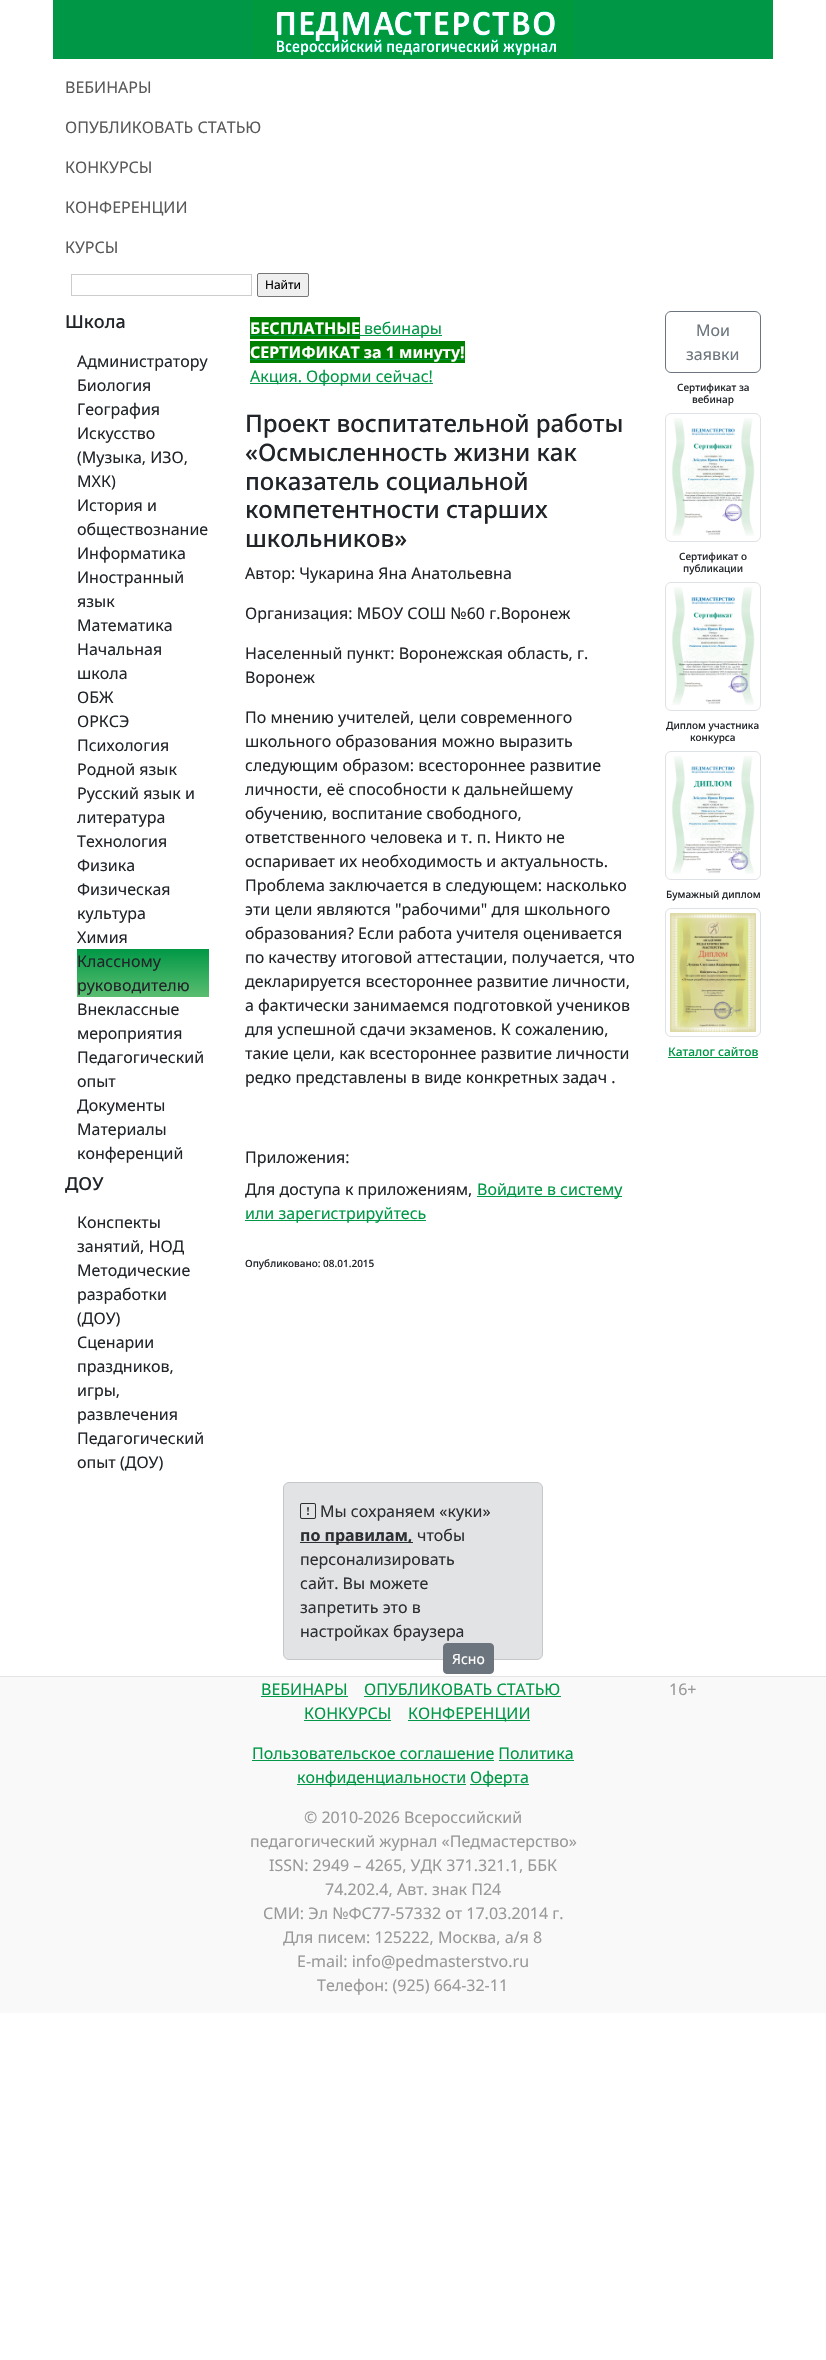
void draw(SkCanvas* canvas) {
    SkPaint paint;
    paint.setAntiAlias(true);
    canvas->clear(0xFFFFFFFF);
    paint.setColor(0xFF009846);
    canvas->drawRect(SkRect::MakeXYWH(53, 0, 720, 59), paint);
    canvas->drawImageRect(SkImages::DeferredFromEncodedData(SkData::MakeFromFileName("img1.png")), SkRect::MakeXYWH(252, 0, 322, 59), SkSamplingOptions());
    SkFont font1(fontMgr->matchFamilyStyle("Noto Sans", SkFontStyle::Normal()), 16);
    font1.setSubpixel(true);
    paint.setColor(0xFF595959);
    canvas->drawString("ВЕБИНАРЫ", 65, 93, font1, paint);
    canvas->drawString("ОПУБЛИКОВАТЬ СТАТЬЮ", 65, 133, font1, paint);
    canvas->drawString("КОНКУРСЫ", 65, 173, font1, paint);
    canvas->drawString("КОНФЕРЕНЦИИ", 65, 213, font1, paint);
    canvas->drawString("КУРСЫ", 65, 253, font1, paint);
    paint.setStyle(SkPaint::kStroke_Style);
    paint.setStrokeWidth(1);
    paint.setColor(0xFFCCCCCC);
    canvas->drawRect(SkRect::MakeXYWH(71.5f, 274.5f, 180, 21), paint);
    paint.setStyle(SkPaint::kFill_Style);
    paint.setColor(0xFFEFEFEF);
    canvas->drawRoundRect(SkRect::MakeXYWH(257.5f, 273.5f, 51, 23), 1.5f, 1.5f, paint);
    paint.setStyle(SkPaint::kStroke_Style);
    paint.setColor(0xFF767676);
    canvas->drawRoundRect(SkRect::MakeXYWH(257.5f, 273.5f, 51, 23), 1.5f, 1.5f, paint);
    SkFont font2(fontMgr->matchFamilyStyle("Noto Sans", SkFontStyle::Normal()), 12);
    font2.setSubpixel(true);
    paint.setStyle(SkPaint::kFill_Style);
    paint.setColor(0xFF000000);
    canvas->drawString("Найти", 265, 289, font2, paint);
    SkFont font3(fontMgr->matchFamilyStyle("Noto Sans", SkFontStyle(500, SkFontStyle::kNormal_Width, SkFontStyle::kUpright_Slant)), 18);
    font3.setSubpixel(true);
    paint.setColor(0xFF212529);
    canvas->drawString("Школа", 65, 328, font3, paint);
    canvas->drawString("Администратору", 77, 367, font1, paint);
    canvas->drawString("Биология", 77, 391, font1, paint);
    canvas->drawString("География", 77, 415, font1, paint);
    canvas->drawString("Искусство", 77, 439, font1, paint);
    canvas->drawString("(Музыка, ИЗО,", 77, 463, font1, paint);
    canvas->drawString("МХК)", 77, 487, font1, paint);
    canvas->drawString("История и", 77, 511, font1, paint);
    canvas->drawString("обществознание", 77, 535, font1, paint);
    canvas->drawString("Информатика", 77, 559, font1, paint);
    canvas->drawString("Иностранный", 77, 583, font1, paint);
    canvas->drawString("язык", 77, 607, font1, paint);
    canvas->drawString("Математика", 77, 631, font1, paint);
    canvas->drawString("Начальная", 77, 655, font1, paint);
    canvas->drawString("школа", 77, 679, font1, paint);
    canvas->drawString("ОБЖ", 77, 703, font1, paint);
    canvas->drawString("ОРКСЭ", 77, 727, font1, paint);
    canvas->drawString("Психология", 77, 751, font1, paint);
    canvas->drawString("Родной язык", 77, 775, font1, paint);
    canvas->drawString("Русский язык и", 77, 799, font1, paint);
    canvas->drawString("литература", 77, 823, font1, paint);
    canvas->drawString("Технология", 77, 847, font1, paint);
    canvas->drawString("Физика", 77, 871, font1, paint);
    canvas->drawString("Физическая", 77, 895, font1, paint);
    canvas->drawString("культура", 77, 919, font1, paint);
    canvas->drawString("Химия", 77, 943, font1, paint);
    {
        const SkColor colors[] = {0xFF009846, 0xFF5BBD70};
        const float stops[] = {0, 1};
        const SkPoint ends[] = {{143, 949}, {143, 997}};
        paint.setShader(SkGradientShader::MakeLinear(ends, colors, stops, 2, SkTileMode::kClamp));
        paint.setAlpha(255);
    }
    canvas->drawRect(SkRect::MakeXYWH(77, 949, 132, 48), paint);
    paint.setShader(nullptr);
    paint.setColor(0xFF212529);
    canvas->drawString("Классному", 77, 967, font1, paint);
    canvas->drawString("руководителю", 77, 991, font1, paint);
    canvas->drawString("Внеклассные", 77, 1015, font1, paint);
    canvas->drawString("мероприятия", 77, 1039, font1, paint);
    canvas->drawString("Педагогический", 77, 1063, font1, paint);
    canvas->drawString("опыт", 77, 1087, font1, paint);
    canvas->drawString("Документы", 77, 1111, font1, paint);
    canvas->drawString("Материалы", 77, 1135, font1, paint);
    canvas->drawString("конференций", 77, 1159, font1, paint);
    canvas->drawString("ДОУ", 65, 1190, font3, paint);
    canvas->drawString("Конспекты", 77, 1228, font1, paint);
    canvas->drawString("занятий, НОД", 77, 1252, font1, paint);
    canvas->drawString("Методические", 77, 1276, font1, paint);
    canvas->drawString("разработки", 77, 1300, font1, paint);
    canvas->drawString("(ДОУ)", 77, 1324, font1, paint);
    canvas->drawString("Сценарии", 77, 1348, font1, paint);
    canvas->drawString("праздников,", 77, 1372, font1, paint);
    canvas->drawString("игры,", 77, 1396, font1, paint);
    canvas->drawString("развлечения", 77, 1420, font1, paint);
    canvas->drawString("Педагогический", 77, 1444, font1, paint);
    canvas->drawString("опыт (ДОУ)", 77, 1468, font1, paint);
    paint.setColor(0xFF008000);
    canvas->drawRect(SkRect::MakeXYWH(250, 317, 110, 22), paint);
    SkFont font4(fontMgr->matchFamilyStyle("Noto Sans", SkFontStyle::Bold()), 16);
    font4.setSubpixel(true);
    paint.setColor(0xFFFFFFFF);
    canvas->drawString("БЕСПЛАТНЫЕ", 250, 334, font4, paint);
    paint.setColor(0xFF009846);
    canvas->drawRect(SkRect::MakeXYWH(250, 335, 192, 1), paint);
    canvas->drawString("вебинары", 364, 334, font1, paint);
    paint.setColor(0xFF008000);
    canvas->drawRect(SkRect::MakeXYWH(250, 341, 215, 22), paint);
    paint.setColor(0xFF009846);
    canvas->drawRect(SkRect::MakeXYWH(250, 359, 215, 1), paint);
    paint.setColor(0xFFFFFFFF);
    canvas->drawString("СЕРТИФИКАТ за 1 минуту!", 250, 358, font4, paint);
    paint.setColor(0xFF009846);
    canvas->drawRect(SkRect::MakeXYWH(250, 383, 183, 1), paint);
    canvas->drawString("Акция. Оформи сейчас!", 250, 382, font1, paint);
    SkFont font5(fontMgr->matchFamilyStyle("Noto Sans", SkFontStyle(500, SkFontStyle::kNormal_Width, SkFontStyle::kUpright_Slant)), 24);
    font5.setSubpixel(true);
    paint.setColor(0xFF212529);
    canvas->drawString("Проект воспитательной работы", 245, 432, font5, paint);
    canvas->drawString("«Осмысленность жизни как", 245, 461, font5, paint);
    canvas->drawString("показатель социальной", 245, 490, font5, paint);
    canvas->drawString("компетентности старших", 245, 518, font5, paint);
    canvas->drawString("школьников»", 245, 547, font5, paint);
    canvas->drawString("Автор: Чукарина Яна Анатольевна", 245, 579, font1, paint);
    canvas->drawString("Организация: МБОУ СОШ №60 г.Воронеж", 245, 619, font1, paint);
    canvas->drawString("Населенный пункт: Воронежская область, г.", 245, 659, font1, paint);
    canvas->drawString("Воронеж", 245, 683, font1, paint);
    canvas->drawString("По мнению учителей, цели современного", 245, 723, font1, paint);
    canvas->drawString("школьного образования можно выразить", 245, 747, font1, paint);
    canvas->drawString("следующим образом: всестороннее развитие", 245, 771, font1, paint);
    canvas->drawString("личности, её способности к дальнейшему", 245, 795, font1, paint);
    canvas->drawString("обучению, воспитание свободного,", 245, 819, font1, paint);
    canvas->drawString("ответственного человека и т. п. Никто не", 245, 843, font1, paint);
    canvas->drawString("оспаривает их необходимость и актуальность.", 245, 867, font1, paint);
    canvas->drawString("Проблема заключается в следующем: насколько", 245, 891, font1, paint);
    canvas->drawString("эти цели являются \"рабочими\" для школьного", 245, 915, font1, paint);
    canvas->drawString("образования? Если работа учителя оценивается", 245, 939, font1, paint);
    canvas->drawString("по качеству итоговой аттестации, получается, что", 245, 963, font1, paint);
    canvas->drawString("декларируется всестороннее развитие личности,", 245, 987, font1, paint);
    canvas->drawString("а фактически занимаемся подготовкой учеников", 245, 1011, font1, paint);
    canvas->drawString("для успешной сдачи экзаменов. К сожалению,", 245, 1035, font1, paint);
    canvas->drawString("такие цели, как всестороннее развитие личности", 245, 1059, font1, paint);
    canvas->drawString("редко представлены в виде конкретных задач .", 245, 1083, font1, paint);
    canvas->drawString("Приложения:", 245, 1163, font1, paint);
    canvas->drawString("Для доступа к приложениям,", 245, 1195, font1, paint);
    paint.setColor(0xFF009846);
    canvas->drawRect(SkRect::MakeXYWH(477, 1196, 145, 1), paint);
    canvas->drawString("Войдите в систему", 477, 1195, font1, paint);
    canvas->drawRect(SkRect::MakeXYWH(245, 1220, 181, 1), paint);
    canvas->drawString("или зарегистрируйтесь", 245, 1219, font1, paint);
    SkFont font6(fontMgr->matchFamilyStyle("Noto Sans", SkFontStyle(500, SkFontStyle::kNormal_Width, SkFontStyle::kUpright_Slant)), 10);
    font6.setSubpixel(true);
    paint.setColor(0xFF212529);
    canvas->drawString("Опубликовано: 08.01.2015", 245, 1267, font6, paint);
    paint.setStyle(SkPaint::kStroke_Style);
    paint.setColor(0xFF6C757D);
    canvas->drawRoundRect(SkRect::MakeXYWH(665.5f, 311.5f, 95, 61), 5.5f, 5.5f, paint);
    paint.setStyle(SkPaint::kFill_Style);
    canvas->drawString("Мои", 696, 336, font1, paint);
    canvas->drawString("заявки", 686, 360, font1, paint);
    paint.setColor(0xFF212529);
    canvas->drawString("Сертификат за", 677, 391, font6, paint);
    canvas->drawString("вебинар", 692, 403, font6, paint);
    paint.setStyle(SkPaint::kStroke_Style);
    paint.setColor(0xFFDEE2E6);
    canvas->drawRoundRect(SkRect::MakeXYWH(665.5f, 413.5f, 95, 128), 5.5f, 5.5f, paint);
    canvas->drawImageRect(SkImages::DeferredFromEncodedData(SkData::MakeFromFileName("img2.png")), SkRect::MakeXYWH(672, 418, 83, 118), SkSamplingOptions());
    paint.setStyle(SkPaint::kFill_Style);
    paint.setColor(0xFF212529);
    canvas->drawString("Сертификат о", 679, 560, font6, paint);
    canvas->drawString("публикации", 683, 572, font6, paint);
    paint.setStyle(SkPaint::kStroke_Style);
    paint.setColor(0xFFDEE2E6);
    canvas->drawRoundRect(SkRect::MakeXYWH(665.5f, 582.5f, 95, 128), 5.5f, 5.5f, paint);
    canvas->drawImageRect(SkImages::DeferredFromEncodedData(SkData::MakeFromFileName("img3.png")), SkRect::MakeXYWH(672, 587, 83, 118), SkSamplingOptions());
    paint.setStyle(SkPaint::kFill_Style);
    paint.setColor(0xFF212529);
    canvas->drawString("Диплом участника", 666, 729, font6, paint);
    canvas->drawString("конкурса", 690, 741, font6, paint);
    paint.setStyle(SkPaint::kStroke_Style);
    paint.setColor(0xFFDEE2E6);
    canvas->drawRoundRect(SkRect::MakeXYWH(665.5f, 751.5f, 95, 128), 5.5f, 5.5f, paint);
    canvas->drawImageRect(SkImages::DeferredFromEncodedData(SkData::MakeFromFileName("img4.png")), SkRect::MakeXYWH(672, 756, 83, 118), SkSamplingOptions());
    paint.setStyle(SkPaint::kFill_Style);
    paint.setColor(0xFF212529);
    canvas->drawString("Бумажный диплом", 666, 898, font6, paint);
    paint.setStyle(SkPaint::kStroke_Style);
    paint.setColor(0xFFDEE2E6);
    canvas->drawRoundRect(SkRect::MakeXYWH(665.5f, 908.5f, 95, 128), 5.5f, 5.5f, paint);
    canvas->drawImageRect(SkImages::DeferredFromEncodedData(SkData::MakeFromFileName("img5.png")), SkRect::MakeXYWH(670, 913, 86, 119), SkSamplingOptions());
    SkFont font7(fontMgr->matchFamilyStyle("Noto Sans", SkFontStyle(500, SkFontStyle::kNormal_Width, SkFontStyle::kUpright_Slant)), 12);
    font7.setSubpixel(true);
    paint.setStyle(SkPaint::kFill_Style);
    paint.setColor(0xFF009846);
    canvas->drawString("Каталог сайтов", 668, 1056, font7, paint);
    canvas->drawRect(SkRect::MakeXYWH(668, 1057, 90, 1), paint);
    paint.setColor(0xFFE2E3E5);
    canvas->drawRoundRect(SkRect::MakeXYWH(283.5f, 1482.5f, 259, 177), 5.5f, 5.5f, paint);
    paint.setStyle(SkPaint::kStroke_Style);
    paint.setColor(0xFFC4C8CB);
    canvas->drawRoundRect(SkRect::MakeXYWH(283.5f, 1482.5f, 259, 177), 5.5f, 5.5f, paint);
    canvas->drawImageRect(SkImages::DeferredFromEncodedData(SkData::MakeFromFileName("img6.png")), SkRect::MakeXYWH(300, 1503, 16, 16), SkSamplingOptions());
    paint.setStyle(SkPaint::kFill_Style);
    paint.setColor(0xFF2B2F32);
    canvas->drawString("Мы сохраняем «куки»", 320, 1517, font1, paint);
    canvas->drawRect(SkRect::MakeXYWH(300, 1542, 113, 1), paint);
    canvas->drawString("по правилам,", 300, 1541, font4, paint);
    canvas->drawString("чтобы", 417, 1541, font1, paint);
    canvas->drawString("персонализировать", 300, 1565, font1, paint);
    canvas->drawString("сайт. Вы можете", 300, 1589, font1, paint);
    canvas->drawString("запретить это в", 300, 1613, font1, paint);
    canvas->drawString("настройках браузера", 300, 1637, font1, paint);
    paint.setColor(0xFF6C757D);
    canvas->drawRoundRect(SkRect::MakeXYWH(443.5f, 1643.5f, 50, 30), 3.5f, 3.5f, paint);
    paint.setStyle(SkPaint::kStroke_Style);
    canvas->drawRoundRect(SkRect::MakeXYWH(443.5f, 1643.5f, 50, 30), 3.5f, 3.5f, paint);
    SkFont font8(fontMgr->matchFamilyStyle("Noto Sans", SkFontStyle::Normal()), 14);
    font8.setSubpixel(true);
    paint.setStyle(SkPaint::kFill_Style);
    paint.setColor(0xFFFFFFFF);
    canvas->drawString("Ясно", 452, 1664, font8, paint);
    paint.setColor(0xFFF9F9F9);
    canvas->drawRect(SkRect::MakeXYWH(0, 1677, 826, 336), paint);
    paint.setColor(0xFFE5E5E5);
    canvas->drawRect(SkRect::MakeXYWH(0, 1676, 826, 1), paint);
    paint.setColor(0xFF009846);
    canvas->drawString("ВЕБИНАРЫ", 261, 1695, font1, paint);
    canvas->drawRect(SkRect::MakeXYWH(261, 1696, 87, 1), paint);
    canvas->drawString("ОПУБЛИКОВАТЬ СТАТЬЮ", 364, 1695, font1, paint);
    canvas->drawRect(SkRect::MakeXYWH(364, 1696, 197, 1), paint);
    canvas->drawString("КОНКУРСЫ", 304, 1719, font1, paint);
    canvas->drawRect(SkRect::MakeXYWH(304, 1720, 87, 1), paint);
    canvas->drawRect(SkRect::MakeXYWH(408, 1720, 122, 1), paint);
    canvas->drawString("КОНФЕРЕНЦИИ", 408, 1719, font1, paint);
    canvas->drawString("Пользовательское соглашение Политика", 252, 1759, font1, paint);
    canvas->drawRect(SkRect::MakeXYWH(252, 1760, 242, 1), paint);
    canvas->drawRect(SkRect::MakeXYWH(297, 1784, 169, 1), paint);
    canvas->drawString("конфиденциальности", 297, 1783, font1, paint);
    canvas->drawRect(SkRect::MakeXYWH(499, 1760, 75, 1), paint);
    canvas->drawRect(SkRect::MakeXYWH(470, 1784, 59, 1), paint);
    canvas->drawString("Оферта", 470, 1783, font1, paint);
    paint.setColor(0xFF999999);
    canvas->drawString("© 2010-2026 Всероссийский", 304, 1823, font1, paint);
    canvas->drawString("педагогический журнал «Педмастерство»", 250, 1847, font1, paint);
    canvas->drawString("ISSN: 2949 – 4265, УДК 371.321.1, ББК", 269, 1871, font1, paint);
    canvas->drawString("74.202.4, Авт. знак П24", 325, 1895, font1, paint);
    canvas->drawString("СМИ: Эл №ФС77-57332 от 17.03.2014 г.", 263, 1919, font1, paint);
    canvas->drawString("Для писем: 125222, Москва, a/я 8", 283, 1943, font1, paint);
    canvas->drawString("E-mail: info@pedmasterstvo.ru", 297, 1967, font1, paint);
    canvas->drawString("Телефон: (925) 664-32-11", 317, 1991, font1, paint);
    canvas->drawString("16+", 669, 1695, font1, paint);
}
